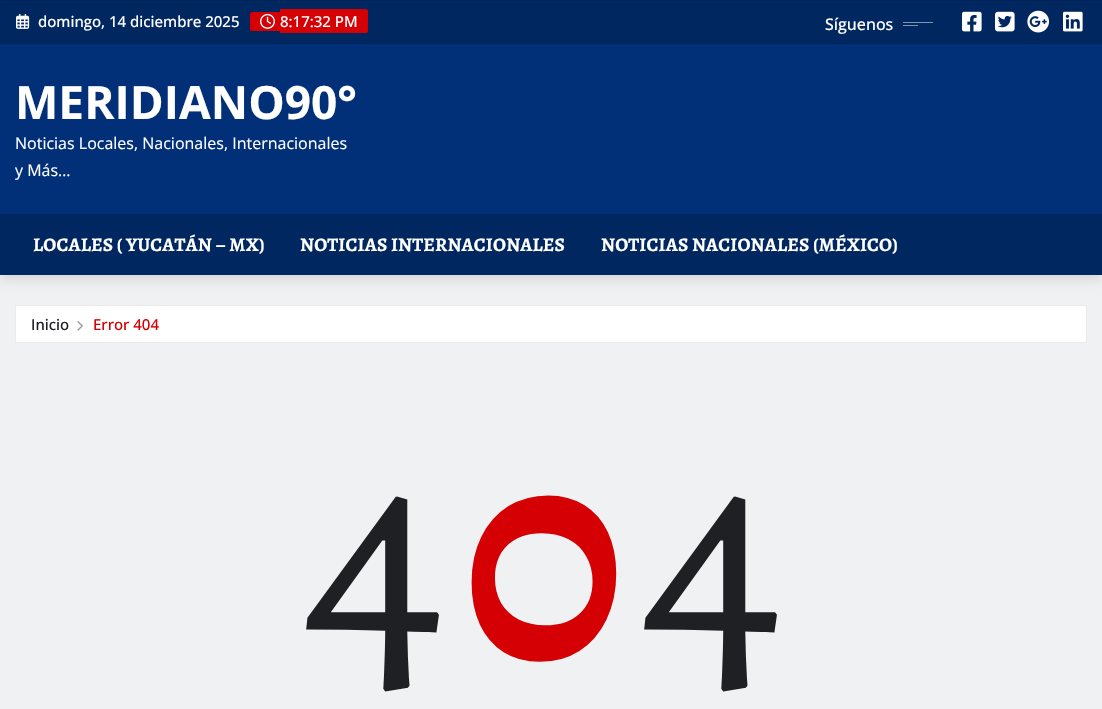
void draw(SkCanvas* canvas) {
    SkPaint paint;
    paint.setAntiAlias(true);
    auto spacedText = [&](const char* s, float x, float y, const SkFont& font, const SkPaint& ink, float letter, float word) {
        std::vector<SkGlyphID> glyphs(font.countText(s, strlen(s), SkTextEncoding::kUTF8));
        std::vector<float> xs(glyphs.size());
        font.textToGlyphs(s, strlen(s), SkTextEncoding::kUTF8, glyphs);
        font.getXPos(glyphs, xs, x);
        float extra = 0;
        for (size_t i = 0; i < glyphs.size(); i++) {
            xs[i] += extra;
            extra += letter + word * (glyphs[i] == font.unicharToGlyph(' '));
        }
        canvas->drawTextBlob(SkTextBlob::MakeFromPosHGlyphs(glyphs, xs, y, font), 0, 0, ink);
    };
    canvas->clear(0xFFF0F1F3);
    paint.setColor(0xFF012761);
    canvas->drawRect(SkRect::MakeXYWH(0, 1, 1102, 42), paint);
    paint.setColor(0xFF012357);
    canvas->drawRect(SkRect::MakeXYWH(0, 0, 1102, 1), paint);
    canvas->drawRect(SkRect::MakeXYWH(0, 43, 1102, 1), paint);
    canvas->drawImageRect(SkImages::DeferredFromEncodedData(SkData::MakeFromFileName("img1.png")), SkRect::MakeXYWH(16, 13, 14, 16), SkSamplingOptions());
    SkFont font1(fontMgr->matchFamilyStyle("Open Sans", SkFontStyle(500, SkFontStyle::kNormal_Width, SkFontStyle::kUpright_Slant)), 15);
    font1.setSubpixel(true);
    paint.setColor(0xFFFFFFFF);
    canvas->drawString("domingo, 14 diciembre 2025", 38, 27, font1, paint);
    paint.setColor(0xFFD40004);
    canvas->drawPath(SkPathBuilder().moveTo(252, 12).lineTo(280, 12).lineTo(280, 31).lineTo(252, 31).cubicTo(251, 31, 250, 30, 250, 29).lineTo(250, 14).cubicTo(250, 13, 251, 12, 252, 12).close().detach(), paint);
    canvas->drawImageRect(SkImages::DeferredFromEncodedData(SkData::MakeFromFileName("img2.png")), SkRect::MakeXYWH(260, 13, 15, 16), SkSamplingOptions());
    canvas->drawPath(SkPathBuilder().moveTo(280, 9).lineTo(366, 9).cubicTo(367, 9, 368, 10, 368, 11).lineTo(368, 31).cubicTo(368, 32, 367, 33, 366, 33).lineTo(280, 33).close().detach(), paint);
    paint.setColor(0xFFFFFFFF);
    canvas->drawString("8:17:32 PM", 280, 27, font1, paint);
    SkFont font2(fontMgr->matchFamilyStyle("Open Sans", SkFontStyle(500, SkFontStyle::kNormal_Width, SkFontStyle::kUpright_Slant)), 16);
    font2.setSubpixel(true);
    canvas->drawString("Síguenos", 825, 30, font2, paint);
    paint.setColor(0xFF8093B0);
    canvas->drawRect(SkRect::MakeXYWH(903, 22, 30, 1), paint);
    canvas->drawRect(SkRect::MakeXYWH(903, 25, 15, 1), paint);
    canvas->drawImageRect(SkImages::DeferredFromEncodedData(SkData::MakeFromFileName("img3.png")), SkRect::MakeXYWH(962, 11, 20, 21), SkSamplingOptions());
    canvas->drawImageRect(SkImages::DeferredFromEncodedData(SkData::MakeFromFileName("img4.png")), SkRect::MakeXYWH(995, 11, 20, 21), SkSamplingOptions());
    canvas->drawImageRect(SkImages::DeferredFromEncodedData(SkData::MakeFromFileName("img5.png")), SkRect::MakeXYWH(1027, 10, 23, 23), SkSamplingOptions());
    canvas->drawImageRect(SkImages::DeferredFromEncodedData(SkData::MakeFromFileName("img6.png")), SkRect::MakeXYWH(1063, 11, 20, 21), SkSamplingOptions());
    paint.setColor(0xFF013079);
    canvas->drawRect(SkRect::MakeXYWH(0, 44, 1102, 170), paint);
    SkFont font3(fontMgr->matchFamilyStyle("Open Sans", SkFontStyle::Bold()), 46);
    font3.setSubpixel(true);
    paint.setColor(0xFFFFFFFF);
    canvas->drawString("MERIDIANO90°", 15, 119, font3, paint);
    SkFont font4(fontMgr->matchFamilyStyle("Open Sans", SkFontStyle::Normal()), 16);
    font4.setSubpixel(true);
    canvas->drawString("Noticias Locales, Nacionales, Internacionales", 15, 149, font4, paint);
    canvas->drawString("y Más…", 15, 176, font4, paint);
    paint.setColor(0x1A000000);
    paint.setMaskFilter(SkMaskFilter::MakeBlur(kNormal_SkBlurStyle, 5));
    canvas->drawRect(SkRect::MakeXYWH(0, 219, 1102, 61), paint);
    paint.setMaskFilter(nullptr);
    paint.setColor(0xFF012761);
    canvas->drawRect(SkRect::MakeXYWH(0, 214, 1102, 61), paint);
    SkFont font5(fontMgr->matchFamilyStyle("Alegreya", SkFontStyle::Bold()), 19.25f);
    font5.setSubpixel(true);
    paint.setColor(0xFFFFFFFF);
    spacedText("LOCALES ( YUCATÁN – MX)", 33, 251, font5, paint, 0.15f, 0);
    spacedText("NOTICIAS INTERNACIONALES", 300, 251, font5, paint, 0.15f, 0);
    spacedText("NOTICIAS NACIONALES (MÉXICO)", 601, 251, font5, paint, 0.15f, 0);
    canvas->drawRect(SkRect::MakeXYWH(15.5f, 305.5f, 1071, 37), paint);
    paint.setStyle(SkPaint::kStroke_Style);
    paint.setStrokeWidth(1);
    paint.setColor(0xFFEBEBEB);
    canvas->drawRect(SkRect::MakeXYWH(15.5f, 305.5f, 1071, 37), paint);
    paint.setStyle(SkPaint::kFill_Style);
    paint.setColor(0xFF1F2024);
    canvas->drawString("Inicio", 31, 330, font1, paint);
    canvas->drawImageRect(SkImages::DeferredFromEncodedData(SkData::MakeFromFileName("img7.png")), SkRect::MakeXYWH(77, 321, 6, 10), SkSamplingOptions());
    paint.setColor(0xFFD40004);
    canvas->drawString("Error 404", 93, 330, font1, paint);
    SkFont font6(fontMgr->matchFamilyStyle("Alegreya", SkFontStyle::Normal()), 320);
    font6.setSubpixel(true);
    paint.setColor(0xFF1F2024);
    spacedText("4", 302, 658, font6, paint, 15, 0);
    SkFont font7(fontMgr->matchFamilyStyle("Alegreya", SkFontStyle(600, SkFontStyle::kNormal_Width, SkFontStyle::kUpright_Slant)), 320);
    font7.setSubpixel(true);
    paint.setColor(0xFFD40004);
    spacedText("0", 462, 658, font7, paint, 15, 0);
    paint.setColor(0xFF1F2024);
    spacedText("4", 640, 658, font6, paint, 15, 0);
}
